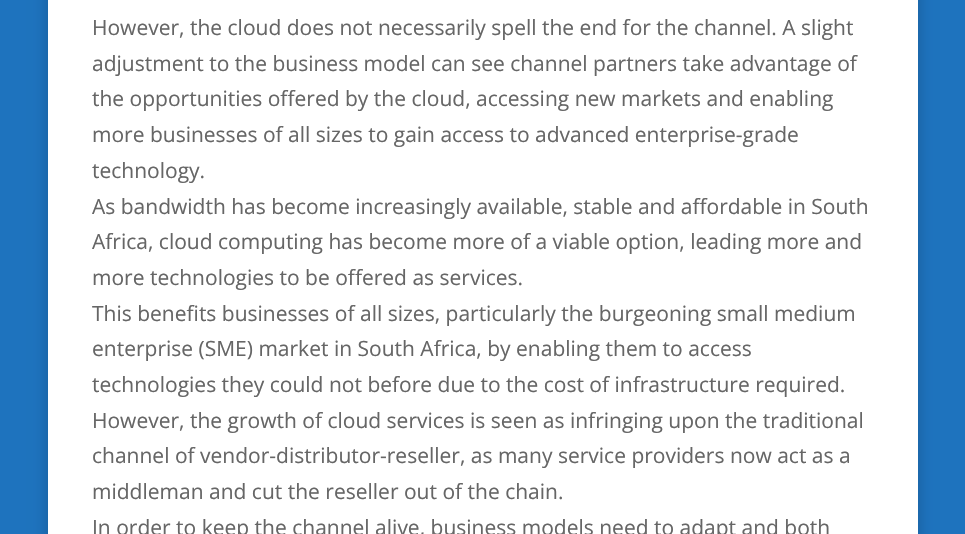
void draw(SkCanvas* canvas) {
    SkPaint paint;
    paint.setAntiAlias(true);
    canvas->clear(0xFF1E73BE);
    paint.setColor(0x33000000);
    paint.setMaskFilter(SkMaskFilter::MakeBlur(kNormal_SkBlurStyle, 7.5f));
    canvas->drawRect(SkRect::MakeXYWH(48, -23, 870, 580), paint);
    paint.setMaskFilter(nullptr);
    paint.setColor(0xFFFFFFFF);
    canvas->drawRect(SkRect::MakeXYWH(48, 0, 870, 534), paint);
    SkFont font1(fontMgr->matchFamilyStyle("Open Sans", SkFontStyle::Normal()), 21);
    font1.setSubpixel(true);
    paint.setColor(0xFF666666);
    canvas->drawString("However, the cloud does not necessarily spell the end for the channel. A slight", 92, 35, font1, paint);
    canvas->drawString("adjustment to the business model can see channel partners take advantage of", 92, 71, font1, paint);
    canvas->drawString("the opportunities offered by the cloud, accessing new markets and enabling", 92, 106, font1, paint);
    canvas->drawString("more businesses of all sizes to gain access to advanced enterprise-grade", 92, 142, font1, paint);
    canvas->drawString("technology.", 92, 178, font1, paint);
    canvas->drawString("As bandwidth has become increasingly available, stable and affordable in South", 92, 214, font1, paint);
    canvas->drawString("Africa, cloud computing has become more of a viable option, leading more and", 92, 249, font1, paint);
    canvas->drawString("more technologies to be offered as services.", 92, 285, font1, paint);
    canvas->drawString("This benefits businesses of all sizes, particularly the burgeoning small medium", 92, 321, font1, paint);
    canvas->drawString("enterprise (SME) market in South Africa, by enabling them to access", 92, 356, font1, paint);
    canvas->drawString("technologies they could not before due to the cost of infrastructure required.", 92, 392, font1, paint);
    canvas->drawString("However, the growth of cloud services is seen as infringing upon the traditional", 92, 428, font1, paint);
    canvas->drawString("channel of vendor-distributor-reseller, as many service providers now act as a", 92, 463, font1, paint);
    canvas->drawString("middleman and cut the reseller out of the chain.", 92, 499, font1, paint);
    canvas->drawString("In order to keep the channel alive, business models need to adapt and both", 92, 535, font1, paint);
}
